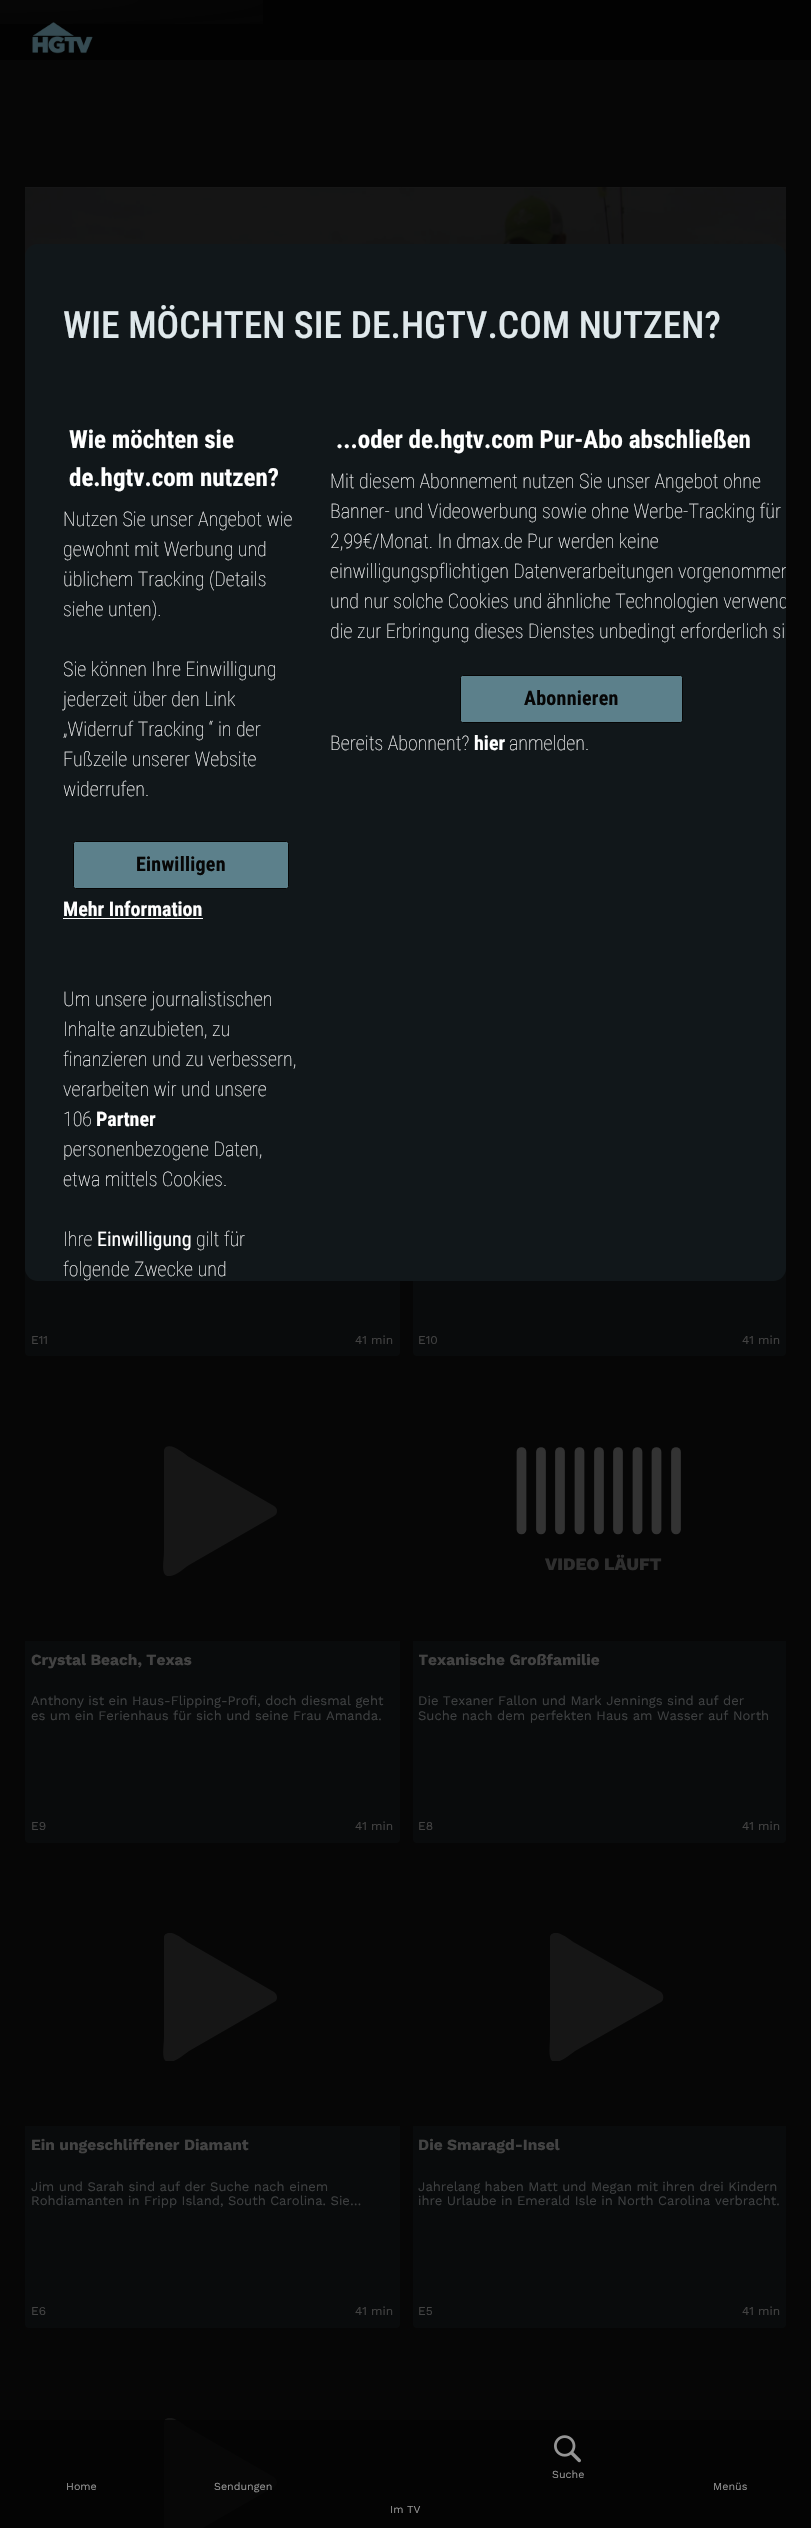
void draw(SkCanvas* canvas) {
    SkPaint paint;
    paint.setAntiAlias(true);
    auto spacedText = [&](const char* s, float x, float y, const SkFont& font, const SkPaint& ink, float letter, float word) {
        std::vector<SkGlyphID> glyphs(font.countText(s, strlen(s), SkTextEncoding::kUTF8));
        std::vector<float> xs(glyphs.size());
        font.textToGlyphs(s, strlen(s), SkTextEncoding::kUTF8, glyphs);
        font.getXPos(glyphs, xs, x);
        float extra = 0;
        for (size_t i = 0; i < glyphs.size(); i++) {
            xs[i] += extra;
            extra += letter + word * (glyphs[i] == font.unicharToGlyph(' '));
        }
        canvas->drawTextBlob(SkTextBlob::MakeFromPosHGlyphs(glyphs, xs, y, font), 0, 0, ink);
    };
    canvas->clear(0xFF060606);
    canvas->drawImageRect(SkImages::DeferredFromEncodedData(SkData::MakeFromFileName("img2.png")), SkRect::MakeXYWH(25, 187, 761, 70), SkSamplingOptions());
    paint.setColor(0xFF090B0C);
    canvas->drawPath(SkPathBuilder().moveTo(25, 1155).lineTo(400, 1155).lineTo(400, 1352).cubicTo(400, 1354, 398, 1356, 396, 1356).lineTo(29, 1356).cubicTo(27, 1356, 25, 1354, 25, 1352).close().detach(), paint);
    canvas->drawPath(SkPathBuilder().moveTo(413, 1155).lineTo(786, 1155).lineTo(786, 1352).cubicTo(786, 1354, 784, 1356, 782, 1356).lineTo(417, 1356).cubicTo(415, 1356, 413, 1354, 413, 1352).close().detach(), paint);
    paint.setColor(0xFF11171A);
    canvas->drawRoundRect(SkRect::MakeXYWH(25, 244, 761, 1037), 13, 13, paint);
    SkFont font1(fontMgr->matchFamilyStyle("Roboto Condensed", SkFontStyle(500, SkFontStyle::kNormal_Width, SkFontStyle::kUpright_Slant)), 37.5f);
    font1.setSubpixel(true);
    paint.setColor(0xFFDFE8EB);
    canvas->drawString("WIE MÖCHTEN SIE DE.HGTV.COM NUTZEN?", 63, 338, font1, paint);
    SkFont font2(fontMgr->matchFamilyStyle("Roboto Condensed", SkFontStyle::Bold()), 25);
    font2.setSubpixel(true);
    paint.setColor(0xFFFFFFFF);
    canvas->drawString("Wie möchten sie", 69, 448, font2, paint);
    canvas->drawString("de.hgtv.com nutzen?", 69, 486, font2, paint);
    SkFont font3(fontMgr->matchFamilyStyle("Roboto Condensed", SkFontStyle(100, SkFontStyle::kNormal_Width, SkFontStyle::kUpright_Slant)), 20);
    font3.setSubpixel(true);
    canvas->drawString("Nutzen Sie unser Angebot wie", 63, 526, font3, paint);
    canvas->drawString("gewohnt mit Werbung und", 63, 556, font3, paint);
    canvas->drawString("üblichem Tracking (Details", 63, 586, font3, paint);
    canvas->drawString("siehe unten).", 63, 616, font3, paint);
    canvas->drawString("Sie können Ihre Einwilligung", 63, 676, font3, paint);
    canvas->drawString("jederzeit über den Link", 63, 706, font3, paint);
    canvas->drawString("„Widerruf Tracking “ in der", 63, 736, font3, paint);
    canvas->drawString("Fußzeile unserer Website", 63, 766, font3, paint);
    canvas->drawString("widerrufen.", 63, 796, font3, paint);
    paint.setColor(0xFF5C808B);
    canvas->drawRoundRect(SkRect::MakeXYWH(73.5f, 841.5f, 215, 47), 2, 2, paint);
    paint.setStyle(SkPaint::kStroke_Style);
    paint.setStrokeWidth(1);
    paint.setColor(0xFF060606);
    canvas->drawRoundRect(SkRect::MakeXYWH(73.5f, 841.5f, 215, 47), 2, 2, paint);
    SkFont font4(fontMgr->matchFamilyStyle("Roboto Condensed", SkFontStyle::Bold()), 20);
    font4.setSubpixel(true);
    paint.setStyle(SkPaint::kFill_Style);
    spacedText("Einwilligen", 136, 871, font4, paint, 0.25f, 0);
    paint.setColor(0xFFFFFFFF);
    canvas->drawString("Mehr Information", 63, 916, font4, paint);
    canvas->drawRect(SkRect::MakeXYWH(63, 918, 140, 1), paint);
    canvas->drawString("Um unsere journalistischen", 63, 1006, font3, paint);
    canvas->drawString("Inhalte anzubieten, zu", 63, 1036, font3, paint);
    canvas->drawString("finanzieren und zu verbessern,", 63, 1066, font3, paint);
    canvas->drawString("verarbeiten wir und unsere", 63, 1096, font3, paint);
    canvas->drawString("106", 63, 1126, font3, paint);
    canvas->drawString("Partner", 96, 1126, font4, paint);
    canvas->drawString("personenbezogene Daten,", 63, 1156, font3, paint);
    canvas->drawString("etwa mittels Cookies.", 63, 1186, font3, paint);
    canvas->drawString("Ihre", 63, 1246, font3, paint);
    SkFont font5(fontMgr->matchFamilyStyle("Roboto Condensed", SkFontStyle::Normal()), 20);
    font5.setSubpixel(true);
    canvas->drawString("Einwilligung", 97, 1246, font5, paint);
    canvas->drawString("gilt für", 196, 1246, font3, paint);
    canvas->drawString("folgende Zwecke und", 63, 1276, font3, paint);
    canvas->drawString("...oder de.hgtv.com Pur-Abo abschließen", 336, 448, font2, paint);
    canvas->drawString("Mit diesem Abonnement nutzen Sie unser Angebot ohne", 330, 488, font3, paint);
    canvas->drawString("Banner- und Videowerbung sowie ohne Werbe-Tracking für", 330, 518, font3, paint);
    canvas->drawString("2,99€/Monat. In dmax.de Pur werden keine", 330, 548, font3, paint);
    canvas->save();
    canvas->clipPath(SkPathBuilder().moveTo(38, 244).lineTo(773, 244).cubicTo(780, 244, 786, 250, 786, 257).lineTo(786, 1268).cubicTo(786, 1275, 780, 1281, 773, 1281).lineTo(38, 1281).cubicTo(31, 1281, 25, 1275, 25, 1268).lineTo(25, 257).cubicTo(25, 250, 31, 244, 38, 244).close().detach(), true);
    canvas->drawString("einwilligungspflichtigen Datenverarbeitungen vorgenommen", 330, 578, font3, paint);
    canvas->drawString("und nur solche Cookies und ähnliche Technologien verwend", 330, 608, font3, paint);
    canvas->restore();
    canvas->drawString("die zur Erbringung dieses Dienstes unbedingt erforderlich si", 330, 638, font3, paint);
    paint.setColor(0xFF5C808B);
    canvas->drawRoundRect(SkRect::MakeXYWH(460.5f, 675.5f, 222, 47), 2, 2, paint);
    paint.setStyle(SkPaint::kStroke_Style);
    paint.setColor(0xFF060606);
    canvas->drawRoundRect(SkRect::MakeXYWH(460.5f, 675.5f, 222, 47), 2, 2, paint);
    paint.setStyle(SkPaint::kFill_Style);
    spacedText("Abonnieren", 524, 705, font4, paint, 0.25f, 0);
    paint.setColor(0xFFFFFFFF);
    canvas->drawString("Bereits Abonnent?", 330, 750, font3, paint);
    canvas->drawString("hier", 474, 750, font4, paint);
    canvas->drawString("anmelden.", 509, 750, font3, paint);
    paint.setColor(0xFF020202);
    canvas->drawRect(SkRect::MakeXYWH(0, 0, 811, 60), paint);
    {
        const SkColor colors[] = {0xE6060606, 0xA6060606, 0x45060606, 0x00060606};
        const float stops[] = {0, 0.2f, 0.37f, 0.58f};
        SkMatrix m = SkMatrix::Translate(0, 0).preScale(1147, 106);
        paint.setShader(SkGradientShader::MakeRadial({0, 0}, 1, colors, stops, 4, SkTileMode::kClamp, 0, &m));
        paint.setAlpha(255);
    }
    canvas->drawRect(SkRect::MakeXYWH(0, 0, 263, 24), paint);
    canvas->drawImageRect(SkImages::DeferredFromEncodedData(SkData::MakeFromFileName("img1.png")), SkRect::MakeXYWH(32, 22, 61, 32), SkSamplingOptions());
    SkFont font6(fontMgr->matchFamilyStyle("Work Sans", SkFontStyle::Normal()), 12);
    font6.setSubpixel(true);
    paint.setShader(nullptr);
    paint.setColor(0xFF434343);
    canvas->drawString("E11", 31, 1344, font6, paint);
    canvas->drawString("41 min", 355, 1344, font6, paint);
    canvas->drawString("E10", 418, 1344, font6, paint);
    canvas->drawString("41 min", 742, 1344, font6, paint);
    paint.setColor(0xFF161616);
    canvas->drawPath(SkPathBuilder(SkPathFillType::kEvenOdd).moveTo(274, 1516).lineTo(189, 1565).cubicTo(183, 1569, 177, 1575, 170, 1576).cubicTo(160, 1577, 164, 1562, 164, 1551).lineTo(164, 1451).cubicTo(164, 1449, 165, 1448, 166, 1447).cubicTo(172, 1443, 185, 1454, 189, 1457).lineTo(274, 1506).cubicTo(278, 1508, 278, 1514, 274, 1516).close().detach(), paint);
    paint.setColor(0xFF090B0C);
    canvas->drawPath(SkPathBuilder().moveTo(25, 1641).lineTo(400, 1641).lineTo(400, 1839).cubicTo(400, 1841, 398, 1843, 396, 1843).lineTo(29, 1843).cubicTo(27, 1843, 25, 1841, 25, 1839).close().detach(), paint);
    SkFont font7(fontMgr->matchFamilyStyle("Work Sans", SkFontStyle::Bold()), 15.5f);
    font7.setSubpixel(true);
    paint.setColor(0xFF434343);
    canvas->drawString("Crystal Beach, Texas", 31, 1665, font7, paint);
    SkFont font8(fontMgr->matchFamilyStyle("Work Sans", SkFontStyle::Normal()), 13.05f);
    font8.setSubpixel(true);
    paint.setColor(0xFF3D3F40);
    canvas->drawString("Anthony ist ein Haus-Flipping-Profi, doch diesmal geht", 31, 1705, font8, paint);
    canvas->drawString("es um ein Ferienhaus für sich und seine Frau Amanda.", 31, 1720, font8, paint);
    paint.setColor(0xFF434343);
    canvas->drawString("E9", 31, 1830, font6, paint);
    canvas->drawString("41 min", 355, 1830, font6, paint);
    paint.setStyle(SkPaint::kStroke_Style);
    paint.setStrokeWidth(9.7f);
    paint.setStrokeCap(SkPaint::kRound_Cap);
    paint.setColor(0xFF333333);
    canvas->drawPath(SkPathBuilder().moveTo(637.5f, 1452).lineTo(637.5f, 1529.5f).detach(), paint);
    canvas->drawPath(SkPathBuilder().moveTo(618, 1452).lineTo(618, 1529.5f).detach(), paint);
    canvas->drawPath(SkPathBuilder().moveTo(656.5f, 1452).lineTo(656.5f, 1529.5f).detach(), paint);
    canvas->drawPath(SkPathBuilder().moveTo(676, 1452).lineTo(676, 1529.5f).detach(), paint);
    canvas->drawPath(SkPathBuilder().moveTo(599, 1452).lineTo(599, 1529.5f).detach(), paint);
    canvas->drawPath(SkPathBuilder().moveTo(521.5f, 1452).lineTo(521.5f, 1529.5f).detach(), paint);
    canvas->drawPath(SkPathBuilder().moveTo(541, 1452).lineTo(541, 1529.5f).detach(), paint);
    canvas->drawPath(SkPathBuilder().moveTo(560, 1452).lineTo(560, 1529.5f).detach(), paint);
    canvas->drawPath(SkPathBuilder().moveTo(579.5f, 1452).lineTo(579.5f, 1529.5f).detach(), paint);
    SkFont font9(fontMgr->matchFamilyStyle("Work Sans", SkFontStyle(800, SkFontStyle::kNormal_Width, SkFontStyle::kUpright_Slant)), 17.5f);
    font9.setSubpixel(true);
    paint.setStyle(SkPaint::kFill_Style);
    paint.setColor(0xFF2F2F2F);
    canvas->drawString("VIDEO LÄUFT", 545, 1570, font9, paint);
    paint.setColor(0xFF090B0C);
    canvas->drawPath(SkPathBuilder().moveTo(413, 1641).lineTo(786, 1641).lineTo(786, 1839).cubicTo(786, 1841, 784, 1843, 782, 1843).lineTo(417, 1843).cubicTo(415, 1843, 413, 1841, 413, 1839).close().detach(), paint);
    canvas->save();
    canvas->clipRect(SkRect::MakeXYWH(419, 1651, 361, 37));
    paint.setColor(0xFF434343);
    canvas->drawString("Texanische Großfamilie", 418, 1665, font7, paint);
    canvas->restore();
    paint.setColor(0xFF3D3F40);
    canvas->drawString("Die Texaner Fallon und Mark Jennings sind auf der", 418, 1705, font8, paint);
    canvas->drawString("Suche nach dem perfekten Haus am Wasser auf North", 418, 1720, font8, paint);
    paint.setColor(0xFF434343);
    canvas->drawString("E8", 418, 1830, font6, paint);
    canvas->drawString("41 min", 742, 1830, font6, paint);
    canvas->save();
    canvas->clipRect(SkRect::MakeXYWH(88, 1933, 250, 128));
    paint.setColor(0xFF161616);
    canvas->drawPath(SkPathBuilder(SkPathFillType::kEvenOdd).moveTo(274, 2002).lineTo(189, 2051).cubicTo(183, 2055, 177, 2061, 170, 2062).cubicTo(160, 2063, 164, 2048, 164, 2037).lineTo(164, 1937).cubicTo(164, 1936, 165, 1934, 166, 1934).cubicTo(172, 1929, 185, 1941, 189, 1943).lineTo(274, 1992).cubicTo(278, 1995, 278, 2000, 274, 2002).close().detach(), paint);
    canvas->restore();
    paint.setColor(0xFF090B0C);
    canvas->drawPath(SkPathBuilder().moveTo(25, 2126).lineTo(400, 2126).lineTo(400, 2324).cubicTo(400, 2326, 398, 2328, 396, 2328).lineTo(29, 2328).cubicTo(27, 2328, 25, 2326, 25, 2324).close().detach(), paint);
    paint.setColor(0xFF434343);
    canvas->drawString("Ein ungeschliffener Diamant", 31, 2150, font7, paint);
    paint.setColor(0xFF3D3F40);
    canvas->drawString("Jim und Sarah sind auf der Suche nach einem", 31, 2191, font8, paint);
    canvas->drawString("Rohdiamanten in Fripp Island, South Carolina. Sie…", 31, 2205, font8, paint);
    paint.setColor(0xFF434343);
    canvas->drawString("E6", 31, 2315, font6, paint);
    canvas->drawString("41 min", 355, 2315, font6, paint);
    canvas->save();
    canvas->clipRect(SkRect::MakeXYWH(474, 1933, 250, 128));
    paint.setColor(0xFF161616);
    canvas->drawPath(SkPathBuilder(SkPathFillType::kEvenOdd).moveTo(661, 2002).lineTo(575, 2051).cubicTo(569, 2055, 563, 2061, 556, 2062).cubicTo(547, 2063, 550, 2048, 550, 2037).lineTo(550, 1937).cubicTo(550, 1936, 551, 1934, 552, 1934).cubicTo(558, 1929, 571, 1941, 575, 1943).lineTo(661, 1992).cubicTo(664, 1995, 664, 2000, 661, 2002).close().detach(), paint);
    canvas->restore();
    paint.setColor(0xFF090B0C);
    canvas->drawPath(SkPathBuilder().moveTo(413, 2126).lineTo(786, 2126).lineTo(786, 2324).cubicTo(786, 2326, 784, 2328, 782, 2328).lineTo(417, 2328).cubicTo(415, 2328, 413, 2326, 413, 2324).close().detach(), paint);
    paint.setColor(0xFF434343);
    canvas->drawString("Die Smaragd-Insel", 418, 2150, font7, paint);
    paint.setColor(0xFF3D3F40);
    canvas->drawString("Jahrelang haben Matt und Megan mit ihren drei Kindern", 418, 2191, font8, paint);
    canvas->drawString("ihre Urlaube in Emerald Isle in North Carolina verbracht.", 418, 2205, font8, paint);
    paint.setColor(0xFF434343);
    canvas->drawString("E5", 418, 2315, font6, paint);
    canvas->drawString("41 min", 742, 2315, font6, paint);
    canvas->save();
    canvas->clipRect(SkRect::MakeXYWH(88, 2418, 250, 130));
    paint.setColor(0xFF161616);
    canvas->drawPath(SkPathBuilder(SkPathFillType::kEvenOdd).moveTo(274, 2487).lineTo(189, 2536).cubicTo(183, 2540, 177, 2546, 170, 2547).cubicTo(160, 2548, 164, 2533, 164, 2522).lineTo(164, 2422).cubicTo(164, 2421, 165, 2419, 166, 2419).cubicTo(172, 2414, 185, 2426, 189, 2428).lineTo(274, 2477).cubicTo(278, 2480, 278, 2485, 274, 2487).close().detach(), paint);
    canvas->restore();
    paint.setColor(0xCF020303);
    canvas->drawRect(SkRect::MakeXYWH(0, 2420, 811, 108), paint);
    canvas->drawImageRect(SkImages::DeferredFromEncodedData(SkData::MakeFromFileName("img3.png")), SkRect::MakeXYWH(554, 2435, 27, 28), SkSamplingOptions());
    SkFont font10(fontMgr->matchFamilyStyle("Work Sans", SkFontStyle::Normal()), 10.75f);
    font10.setSubpixel(true);
    paint.setColor(0xFF949494);
    canvas->drawString("Suche", 552, 2478, font10, paint);
    canvas->drawString("Home", 66, 2490, font10, paint);
    canvas->drawString("Sendungen", 214, 2490, font10, paint);
    canvas->drawString("Menüs", 713, 2490, font10, paint);
    canvas->drawString("Im TV", 390, 2513, font10, paint);
}
